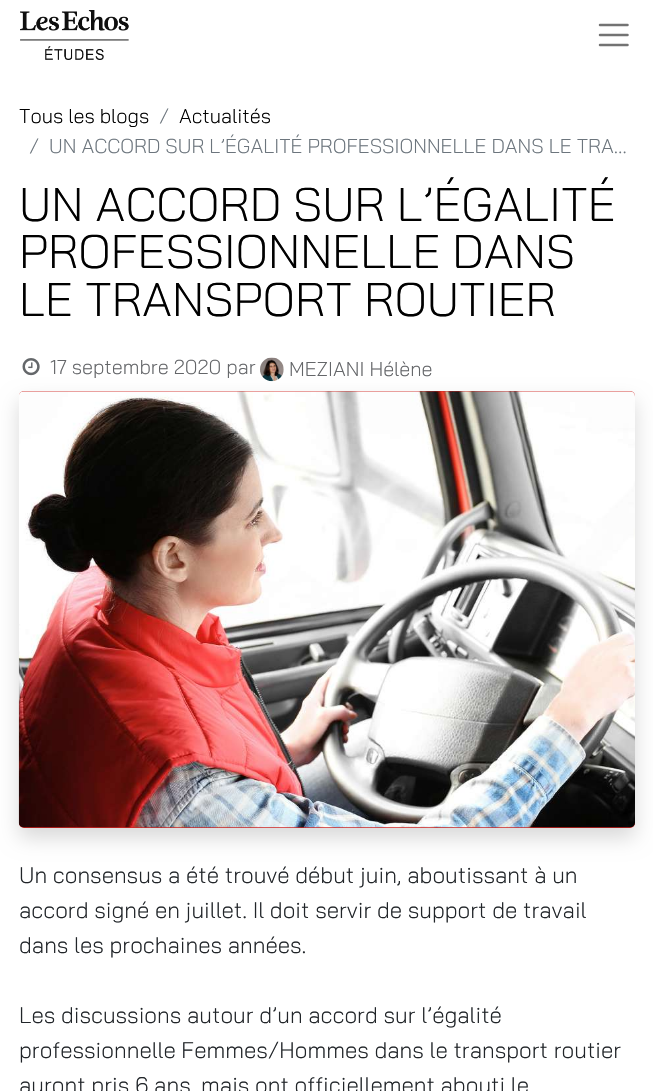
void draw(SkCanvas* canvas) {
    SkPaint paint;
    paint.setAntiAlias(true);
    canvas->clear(0xFFFFFFFF);
    canvas->drawImageRect(SkImages::DeferredFromEncodedData(SkData::MakeFromFileName("img1.png")), SkRect::MakeXYWH(20, 10, 109, 50), SkSamplingOptions());
    paint.setStyle(SkPaint::kStroke_Style);
    paint.setStrokeWidth(2.5f);
    paint.setStrokeCap(SkPaint::kRound_Cap);
    paint.setColor(0xFF737373);
    canvas->drawPath(SkPathBuilder().moveTo(600, 25).lineTo(627.5f, 25).moveTo(600, 35).lineTo(627.5f, 35).moveTo(600, 45).lineTo(627.5f, 45).detach(), paint);
    SkFont font1(fontMgr->matchFamilyStyle("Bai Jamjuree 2", SkFontStyle(300, SkFontStyle::kNormal_Width, SkFontStyle::kUpright_Slant)), 20);
    font1.setSubpixel(true);
    paint.setStyle(SkPaint::kFill_Style);
    paint.setColor(0xFF000000);
    canvas->drawString("Tous les blogs", 19, 123, font1, paint);
    paint.setColor(0xFF6C757D);
    canvas->drawString("/", 159, 123, font1, paint);
    paint.setColor(0xFF000000);
    canvas->drawString("Actualités", 179, 123, font1, paint);
    paint.setColor(0xFF6C757D);
    canvas->drawString("/", 29, 153, font1, paint);
    canvas->drawString("UN ACCORD SUR L’ÉGALITÉ PROFESSIONNELLE DANS LE TRA…", 49, 153, font1, paint);
    SkFont font2(fontMgr->matchFamilyStyle("Bai Jamjuree", SkFontStyle(300, SkFontStyle::kNormal_Width, SkFontStyle::kUpright_Slant)), 47.1f);
    font2.setSubpixel(true);
    paint.setColor(0xFF000000);
    canvas->drawString("UN ACCORD SUR L’ÉGALITÉ", 19, 221, font2, paint);
    canvas->drawString("PROFESSIONNELLE DANS", 19, 268, font2, paint);
    canvas->drawString("LE TRANSPORT ROUTIER", 19, 316, font2, paint);
    canvas->drawImageRect(SkImages::DeferredFromEncodedData(SkData::MakeFromFileName("img2.png")), SkRect::MakeXYWH(22, 358, 18, 18), SkSamplingOptions());
    paint.setColor(0xFF646669);
    canvas->drawString("17 septembre 2020 par", 50, 374, font1, paint);
    canvas->drawImageRect(SkImages::DeferredFromEncodedData(SkData::MakeFromFileName("img3.png")), SkRect::MakeXYWH(260, 357, 24, 25), SkSamplingOptions());
    canvas->drawString("MEZIANI Hélène", 289, 376, font1, paint);
    paint.setColor(0x26000000);
    paint.setMaskFilter(SkMaskFilter::MakeBlur(kNormal_SkBlurStyle, 10));
    canvas->drawRoundRect(SkRect::MakeXYWH(19, 401, 616, 437), 5, 5, paint);
    paint.setMaskFilter(nullptr);
    paint.setColor(0xFFCF231F);
    canvas->drawRoundRect(SkRect::MakeXYWH(19, 391, 616, 437), 5, 5, paint);
    canvas->drawImageRect(SkImages::DeferredFromEncodedData(SkData::MakeFromFileName("img4.png")), SkRect::MakeXYWH(18, 391, 617, 437), SkSamplingOptions());
    SkFont font3(fontMgr->matchFamilyStyle("Bai Jamjuree 2", SkFontStyle(300, SkFontStyle::kNormal_Width, SkFontStyle::kUpright_Slant)), 22.5f);
    font3.setSubpixel(true);
    paint.setColor(0xFF212529);
    canvas->drawString("Un consensus a été trouvé début juin, aboutissant à un", 19, 883, font3, paint);
    canvas->drawString("accord signé en juillet. Il doit servir de support de travail", 19, 918, font3, paint);
    canvas->drawString("dans les prochaines années.", 19, 953, font3, paint);
    SkFont font4(fontMgr->matchFamilyStyle("Bai Jamjuree", SkFontStyle(300, SkFontStyle::kNormal_Width, SkFontStyle::kUpright_Slant)), 22.5f);
    font4.setSubpixel(true);
    canvas->drawString("Les discussions autour d’un accord sur l’égalité", 19, 1023, font4, paint);
    canvas->drawString("professionnelle Femmes/Hommes dans le transport routier", 19, 1058, font4, paint);
    canvas->drawString("auront pris 6 ans, mais ont officiellement abouti le", 19, 1093, font4, paint);
}
